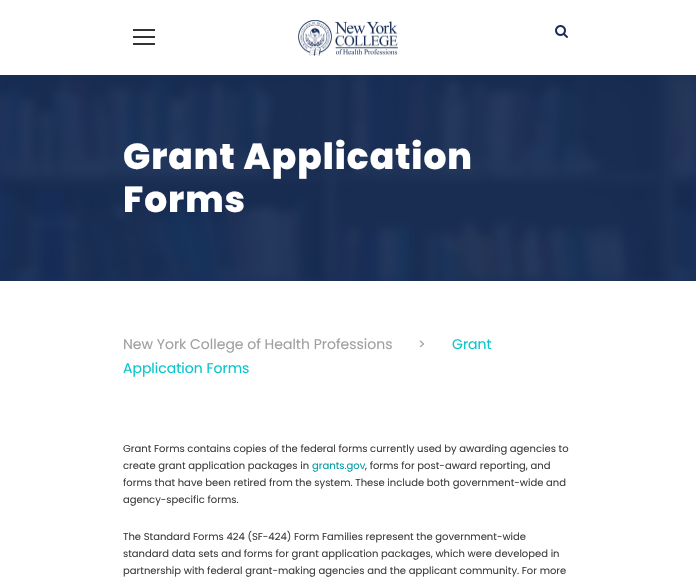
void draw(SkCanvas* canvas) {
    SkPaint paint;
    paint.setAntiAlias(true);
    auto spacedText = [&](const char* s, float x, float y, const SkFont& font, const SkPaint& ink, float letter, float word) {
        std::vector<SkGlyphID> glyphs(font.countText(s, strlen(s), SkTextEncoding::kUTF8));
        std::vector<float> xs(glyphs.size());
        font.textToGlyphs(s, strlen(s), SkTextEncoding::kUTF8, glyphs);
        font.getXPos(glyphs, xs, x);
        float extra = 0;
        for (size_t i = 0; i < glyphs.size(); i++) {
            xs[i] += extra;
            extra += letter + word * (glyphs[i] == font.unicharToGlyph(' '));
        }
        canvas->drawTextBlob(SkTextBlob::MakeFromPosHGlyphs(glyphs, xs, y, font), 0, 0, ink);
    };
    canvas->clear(0xFFFFFFFF);
    paint.setColor(0xFF333333);
    canvas->drawRect(SkRect::MakeXYWH(133, 29, 22, 2), paint);
    canvas->drawRect(SkRect::MakeXYWH(133, 36, 22, 2), paint);
    canvas->drawRect(SkRect::MakeXYWH(133, 43, 22, 2), paint);
    canvas->drawImageRect(SkImages::DeferredFromEncodedData(SkData::MakeFromFileName("img1.png")), SkRect::MakeXYWH(298, 20, 100, 36), SkSamplingOptions());
    canvas->drawImageRect(SkImages::DeferredFromEncodedData(SkData::MakeFromFileName("img2.png")), SkRect::MakeXYWH(555, 25, 13, 13), SkSamplingOptions());
    paint.setColor(0xFF192F59);
    canvas->drawRect(SkRect::MakeXYWH(0, 75, 696, 206), paint);
    canvas->drawImageRect(SkImages::DeferredFromEncodedData(SkData::MakeFromFileName("img3.png")), SkRect::MakeXYWH(0, 75, 696, 206), SkSamplingOptions());
    SkFont font1(fontMgr->matchFamilyStyle("Poppins", SkFontStyle(800, SkFontStyle::kNormal_Width, SkFontStyle::kUpright_Slant)), 36);
    font1.setSubpixel(true);
    paint.setColor(0xFFFFFFFF);
    spacedText("Grant Application", 123, 169, font1, paint, 1, 0);
    spacedText("Forms", 123, 212, font1, paint, 1, 0);
    SkFont font2(fontMgr->matchFamilyStyle("Poppins", SkFontStyle::Normal()), 14);
    font2.setSubpixel(true);
    paint.setColor(0xFFA0A0A0);
    canvas->drawString("New York College of Health Professions", 123, 349, font2, paint);
    canvas->drawString(">", 418, 349, font2, paint);
    paint.setColor(0xFF08C5CC);
    canvas->drawString("Grant", 452, 349, font2, paint);
    canvas->drawString("Application Forms", 123, 373, font2, paint);
    SkFont font3(fontMgr->matchFamilyStyle("Poppins", SkFontStyle::Normal()), 10);
    font3.setSubpixel(true);
    paint.setColor(0xFF3F3F3F);
    canvas->drawString("Grant Forms contains copies of the federal forms currently used by awarding agencies to", 123, 452, font3, paint);
    canvas->drawString("create grant application packages in", 123, 469, font3, paint);
    paint.setColor(0xFF019DA3);
    canvas->drawString("grants.gov", 312, 469, font3, paint);
    paint.setColor(0xFF3F3F3F);
    canvas->drawString(", forms for post-award reporting, and", 365, 469, font3, paint);
    canvas->drawString("forms that have been retired from the system. These include both government-wide and", 123, 486, font3, paint);
    canvas->drawString("agency-specific forms.", 123, 503, font3, paint);
    canvas->drawString("The Standard Forms 424 (SF-424) Form Families represent the government-wide", 123, 540, font3, paint);
    canvas->drawString("standard data sets and forms for grant application packages, which were developed in", 123, 557, font3, paint);
    canvas->drawString("partnership with federal grant-making agencies and the applicant community. For more", 123, 574, font3, paint);
}
